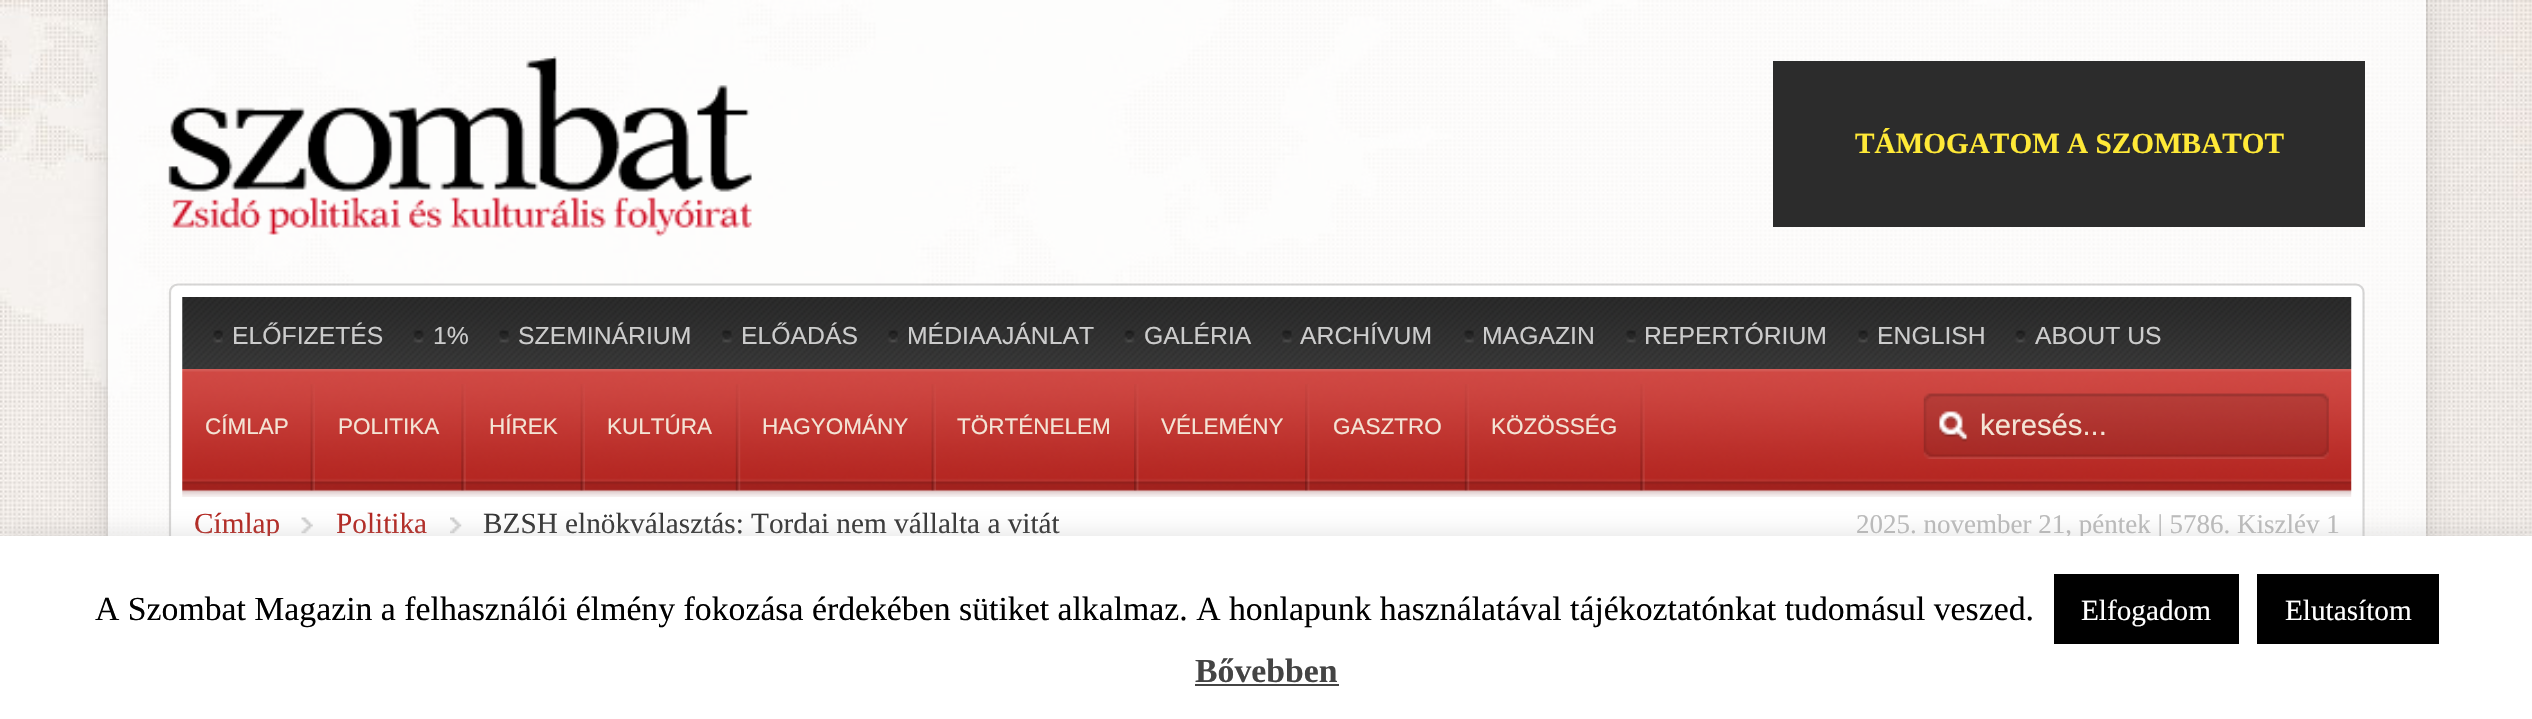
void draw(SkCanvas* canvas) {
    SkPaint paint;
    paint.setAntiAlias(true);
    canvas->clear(0xFFFFFFFF);
    canvas->drawImageRect(SkImages::DeferredFromEncodedData(SkData::MakeFromFileName("img1.png")), SkRect::MakeXYWH(0, 0, 2532, 536), SkSamplingOptions());
    canvas->save();
    canvas->clipPath(SkPathBuilder(SkPathFillType::kEvenOdd).moveTo(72, 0).lineTo(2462, 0).lineTo(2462, 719).lineTo(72, 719).close().moveTo(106, 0).lineTo(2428, 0).lineTo(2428, 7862).lineTo(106, 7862).close().detach(), true);
    paint.setColor(0x1A000000);
    paint.setMaskFilter(SkMaskFilter::MakeBlur(kNormal_SkBlurStyle, 11));
    canvas->drawRect(SkRect::MakeXYWH(106, 0, 2322, 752), paint);
    paint.setMaskFilter(nullptr);
    canvas->restore();
    canvas->drawRect(SkRect::MakeXYWH(2426, 0, 2, 536), paint);
    canvas->drawRect(SkRect::MakeXYWH(106, 0, 2, 536), paint);
    canvas->drawImageRect(SkImages::DeferredFromEncodedData(SkData::MakeFromFileName("img2.png")), SkRect::MakeXYWH(168, 56, 584, 181), SkSamplingOptions());
    paint.setColor(0xFF2C2C2C);
    canvas->drawRect(SkRect::MakeXYWH(1773, 61, 592, 166), paint);
    SkFont font1(fontMgr->matchFamilyStyle("Liberation Serif", SkFontStyle::Bold()), 29.25f);
    font1.setSubpixel(true);
    paint.setColor(0xFFFFE937);
    canvas->drawString("TÁMOGATOM A SZOMBATOT", 1855, 153, font1, paint);
    paint.setColor(0xFFFFFFFF);
    canvas->drawRoundRect(SkRect::MakeXYWH(171, 286, 2192, 277), 7, 7, paint);
    paint.setStyle(SkPaint::kStroke_Style);
    paint.setStrokeWidth(2.2f);
    paint.setColor(0x26000000);
    canvas->drawPath(SkPathBuilder().moveTo(172, 561.5f).cubicTo(170.5f, 560, 170, 558, 170, 556).lineTo(170, 292.5f).cubicTo(170, 290.5f, 170.5f, 288.5f, 172, 287).cubicTo(173.5f, 285.5f, 175.5f, 284.5f, 178, 284.5f).lineTo(2356, 284.5f).cubicTo(2358, 284.5f, 2360, 285.5f, 2361.5f, 287).cubicTo(2363, 288.5f, 2363.5f, 290.5f, 2363.5f, 292.5f).lineTo(2363.5f, 556).cubicTo(2363.5f, 558, 2363, 560, 2361.5f, 561.5f).detach(), paint);
    canvas->drawImageRect(SkImages::DeferredFromEncodedData(SkData::MakeFromFileName("img3.png")), SkRect::MakeXYWH(182, 297, 2170, 72), SkSamplingOptions());
    canvas->drawImageRect(SkImages::DeferredFromEncodedData(SkData::MakeFromFileName("img4.png")), SkRect::MakeXYWH(213, 330, 10, 13), SkSamplingOptions());
    SkFont font2(fontMgr->matchFamilyStyle("Liberation Sans", SkFontStyle::Normal()), 24.75f);
    font2.setSubpixel(true);
    paint.setStyle(SkPaint::kFill_Style);
    paint.setColor(0xFFCCCCCC);
    canvas->drawString("ELŐFIZETÉS", 232, 344, font2, paint);
    canvas->drawImageRect(SkImages::DeferredFromEncodedData(SkData::MakeFromFileName("img5.png")), SkRect::MakeXYWH(413, 330, 11, 13), SkSamplingOptions());
    canvas->drawString("1%", 433, 344, font2, paint);
    canvas->drawImageRect(SkImages::DeferredFromEncodedData(SkData::MakeFromFileName("img6.png")), SkRect::MakeXYWH(499, 330, 10, 13), SkSamplingOptions());
    canvas->drawString("SZEMINÁRIUM", 518, 344, font2, paint);
    canvas->drawImageRect(SkImages::DeferredFromEncodedData(SkData::MakeFromFileName("img7.png")), SkRect::MakeXYWH(722, 330, 10, 13), SkSamplingOptions());
    canvas->drawString("ELŐADÁS", 741, 344, font2, paint);
    canvas->drawImageRect(SkImages::DeferredFromEncodedData(SkData::MakeFromFileName("img8.png")), SkRect::MakeXYWH(888, 330, 10, 13), SkSamplingOptions());
    canvas->drawString("MÉDIAAJÁNLAT", 907, 344, font2, paint);
    canvas->drawImageRect(SkImages::DeferredFromEncodedData(SkData::MakeFromFileName("img9.png")), SkRect::MakeXYWH(1124, 330, 11, 13), SkSamplingOptions());
    canvas->drawString("GALÉRIA", 1144, 344, font2, paint);
    canvas->drawImageRect(SkImages::DeferredFromEncodedData(SkData::MakeFromFileName("img10.png")), SkRect::MakeXYWH(1282, 330, 10, 13), SkSamplingOptions());
    canvas->drawString("ARCHÍVUM", 1300, 344, font2, paint);
    canvas->drawImageRect(SkImages::DeferredFromEncodedData(SkData::MakeFromFileName("img11.png")), SkRect::MakeXYWH(1464, 330, 10, 13), SkSamplingOptions());
    canvas->drawString("MAGAZIN", 1482, 344, font2, paint);
    canvas->drawImageRect(SkImages::DeferredFromEncodedData(SkData::MakeFromFileName("img12.png")), SkRect::MakeXYWH(1626, 330, 10, 13), SkSamplingOptions());
    canvas->drawString("REPERTÓRIUM", 1644, 344, font2, paint);
    canvas->drawImageRect(SkImages::DeferredFromEncodedData(SkData::MakeFromFileName("img13.png")), SkRect::MakeXYWH(1858, 330, 10, 13), SkSamplingOptions());
    canvas->drawString("ENGLISH", 1877, 344, font2, paint);
    canvas->drawImageRect(SkImages::DeferredFromEncodedData(SkData::MakeFromFileName("img14.png")), SkRect::MakeXYWH(2015, 330, 11, 13), SkSamplingOptions());
    canvas->drawString("ABOUT US", 2035, 344, font2, paint);
    canvas->drawImageRect(SkImages::DeferredFromEncodedData(SkData::MakeFromFileName("img15.png")), SkRect::MakeXYWH(182, 369, 2170, 128), SkSamplingOptions());
    canvas->drawImageRect(SkImages::DeferredFromEncodedData(SkData::MakeFromFileName("img16.png")), SkRect::MakeXYWH(310, 384, 5, 107), SkSamplingOptions());
    SkFont font3(fontMgr->matchFamilyStyle("Liberation Sans", SkFontStyle::Normal()), 22.5f);
    font3.setSubpixel(true);
    paint.setColor(0xFFF4E4D5);
    canvas->drawString("CÍMLAP", 205, 434, font3, paint);
    canvas->drawImageRect(SkImages::DeferredFromEncodedData(SkData::MakeFromFileName("img17.png")), SkRect::MakeXYWH(461, 384, 5, 107), SkSamplingOptions());
    canvas->drawString("POLITIKA", 338, 434, font3, paint);
    canvas->drawImageRect(SkImages::DeferredFromEncodedData(SkData::MakeFromFileName("img18.png")), SkRect::MakeXYWH(580, 384, 5, 107), SkSamplingOptions());
    canvas->drawString("HÍREK", 489, 434, font3, paint);
    canvas->drawImageRect(SkImages::DeferredFromEncodedData(SkData::MakeFromFileName("img19.png")), SkRect::MakeXYWH(735, 384, 6, 107), SkSamplingOptions());
    canvas->drawString("KULTÚRA", 607, 434, font3, paint);
    canvas->drawImageRect(SkImages::DeferredFromEncodedData(SkData::MakeFromFileName("img20.png")), SkRect::MakeXYWH(931, 384, 5, 107), SkSamplingOptions());
    canvas->drawString("HAGYOMÁNY", 762, 434, font3, paint);
    canvas->drawImageRect(SkImages::DeferredFromEncodedData(SkData::MakeFromFileName("img21.png")), SkRect::MakeXYWH(1134, 384, 5, 107), SkSamplingOptions());
    canvas->drawString("TÖRTÉNELEM", 957, 434, font3, paint);
    canvas->drawImageRect(SkImages::DeferredFromEncodedData(SkData::MakeFromFileName("img22.png")), SkRect::MakeXYWH(1305, 384, 5, 107), SkSamplingOptions());
    canvas->drawString("VÉLEMÉNY", 1161, 434, font3, paint);
    canvas->drawImageRect(SkImages::DeferredFromEncodedData(SkData::MakeFromFileName("img23.png")), SkRect::MakeXYWH(1464, 384, 6, 107), SkSamplingOptions());
    canvas->drawString("GASZTRO", 1333, 434, font3, paint);
    canvas->drawImageRect(SkImages::DeferredFromEncodedData(SkData::MakeFromFileName("img24.png")), SkRect::MakeXYWH(1640, 384, 5, 107), SkSamplingOptions());
    canvas->drawString("KÖZÖSSÉG", 1491, 434, font3, paint);
    canvas->drawImageRect(SkImages::DeferredFromEncodedData(SkData::MakeFromFileName("img25.png")), SkRect::MakeXYWH(1923, 393, 406, 66), SkSamplingOptions());
    SkFont font4(fontMgr->matchFamilyStyle("Liberation Sans", SkFontStyle::Normal()), 29.25f);
    font4.setSubpixel(true);
    canvas->drawString("keresés...", 1980, 435, font4, paint);
    canvas->drawImageRect(SkImages::DeferredFromEncodedData(SkData::MakeFromFileName("img26.png")), SkRect::MakeXYWH(301, 517, 12, 17), SkSamplingOptions());
    SkFont font5(fontMgr->matchFamilyStyle("Liberation Serif", SkFontStyle::Normal()), 29.25f);
    font5.setSubpixel(true);
    paint.setColor(0xFFB2251F);
    canvas->drawString("Címlap", 194, 533, font5, paint);
    canvas->drawImageRect(SkImages::DeferredFromEncodedData(SkData::MakeFromFileName("img27.png")), SkRect::MakeXYWH(450, 517, 12, 17), SkSamplingOptions());
    canvas->drawString("Politika", 336, 533, font5, paint);
    paint.setColor(0xFF343434);
    canvas->drawString("BZSH elnökválasztás: Tordai nem vállalta a vitát", 483, 533, font5, paint);
    SkFont font6(fontMgr->matchFamilyStyle("Liberation Serif", SkFontStyle::Normal()), 27);
    font6.setSubpixel(true);
    paint.setColor(0xFFBBBBBB);
    canvas->drawString("2025. november 21, péntek | 5786. Kiszlév 1", 1856, 533, font6, paint);
    paint.setColor(0x4DACABAB);
    paint.setMaskFilter(SkMaskFilter::MakeBlur(kNormal_SkBlurStyle, 11));
    canvas->drawRect(SkRect::MakeXYWH(0, 533, 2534, 185), paint);
    paint.setMaskFilter(nullptr);
    paint.setColor(0xFFFFFFFF);
    canvas->drawRect(SkRect::MakeXYWH(0, 536, 2532, 183), paint);
    SkFont font7(fontMgr->matchFamilyStyle("Liberation Serif", SkFontStyle::Normal()), 33.75f);
    font7.setSubpixel(true);
    paint.setColor(0xFF000000);
    canvas->drawString("A Szombat Magazin a felhasználói élmény fokozása érdekében sütiket alkalmaz. A honlapunk használatával tájékoztatónkat tudomásul veszed.", 95, 620, font7, paint);
    canvas->drawRect(SkRect::MakeXYWH(2054, 574, 185, 70), paint);
    paint.setColor(0xFFFFFFFF);
    canvas->drawString("Elfogadom", 2081, 620, font5, paint);
    paint.setColor(0xFF000000);
    canvas->drawRect(SkRect::MakeXYWH(2257, 574, 182, 70), paint);
    paint.setColor(0xFFFFFFFF);
    canvas->drawString("Elutasítom", 2285, 620, font5, paint);
    SkFont font8(fontMgr->matchFamilyStyle("Liberation Serif", SkFontStyle::Bold()), 33.75f);
    font8.setSubpixel(true);
    paint.setColor(0xFF444444);
    canvas->drawString("Bővebben", 1195, 682, font8, paint);
    canvas->drawRect(SkRect::MakeXYWH(1195, 684, 144, 2), paint);
}
